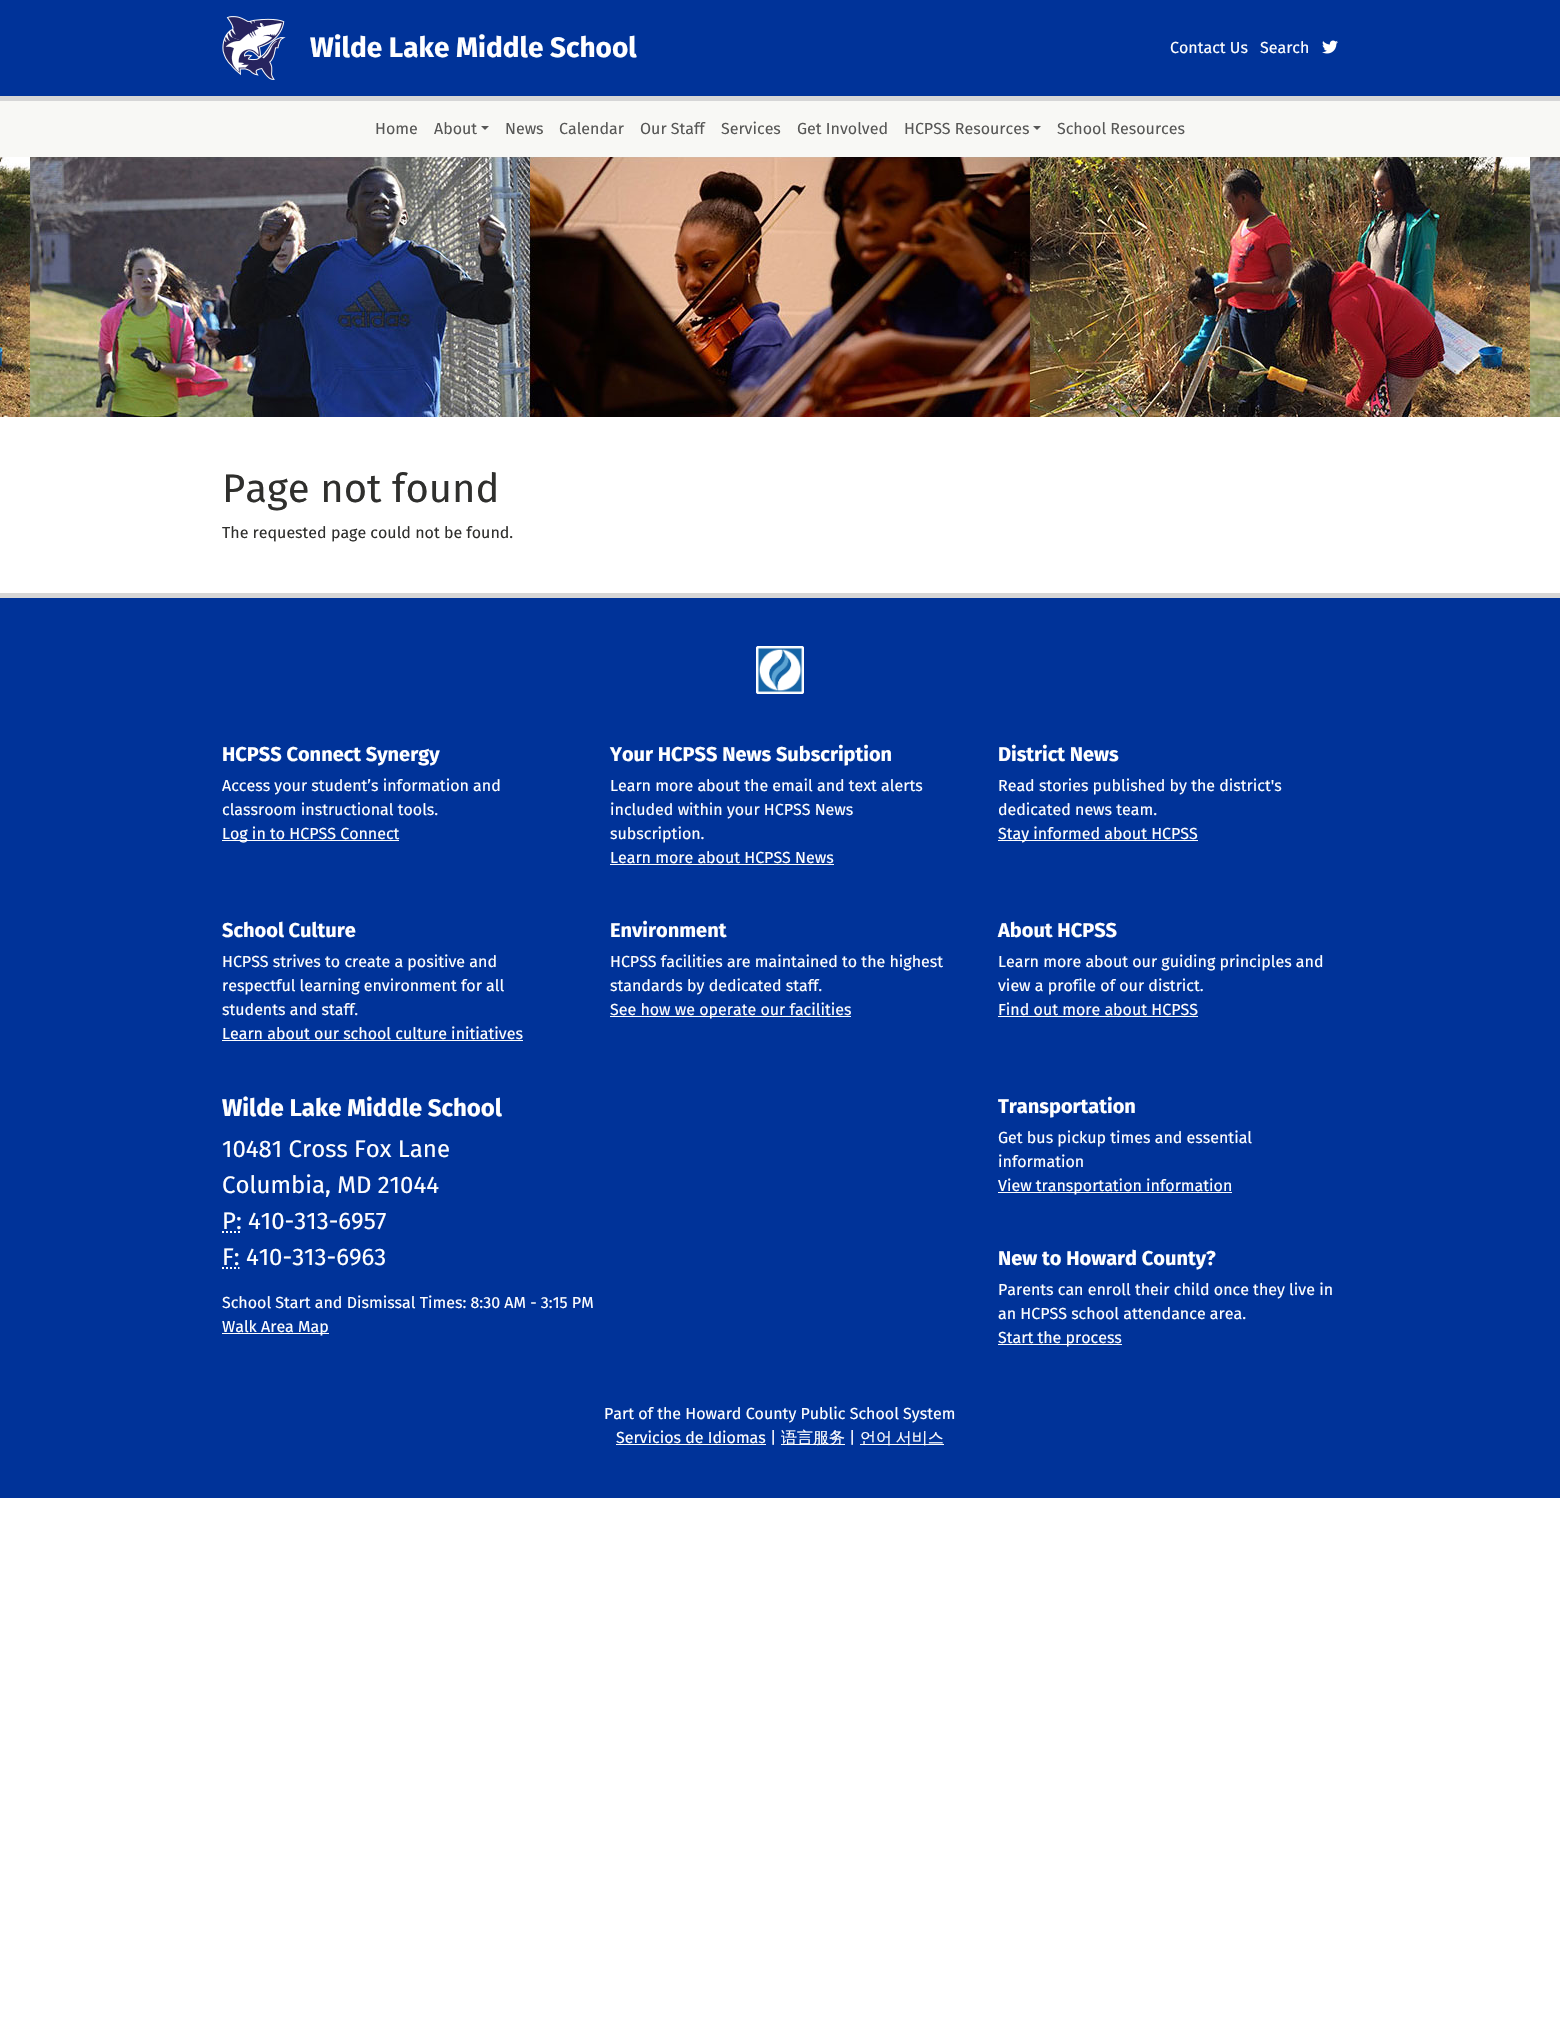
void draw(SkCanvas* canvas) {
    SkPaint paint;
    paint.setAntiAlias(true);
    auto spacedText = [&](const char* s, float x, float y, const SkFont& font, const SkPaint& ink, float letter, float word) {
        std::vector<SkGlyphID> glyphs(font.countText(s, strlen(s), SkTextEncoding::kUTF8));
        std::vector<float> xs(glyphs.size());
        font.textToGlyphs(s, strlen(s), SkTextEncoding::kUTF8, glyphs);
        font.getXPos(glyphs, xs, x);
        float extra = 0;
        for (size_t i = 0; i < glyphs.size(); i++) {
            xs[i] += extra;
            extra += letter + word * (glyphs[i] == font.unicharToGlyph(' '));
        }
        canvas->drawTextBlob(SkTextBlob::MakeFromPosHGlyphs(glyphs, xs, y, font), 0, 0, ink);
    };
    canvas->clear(0xFFFFFFFF);
    paint.setColor(0xFF003399);
    canvas->drawRect(SkRect::MakeXYWH(0, 0, 1560, 96), paint);
    paint.setColor(0xFFD6D6D6);
    canvas->drawRect(SkRect::MakeXYWH(0, 96, 1560, 5), paint);
    canvas->drawImageRect(SkImages::DeferredFromEncodedData(SkData::MakeFromFileName("img1.png")), SkRect::MakeXYWH(222, 16, 64, 64), SkSamplingOptions());
    SkFont font1(fontMgr->matchFamilyStyle("Fira Sans", SkFontStyle::Bold()), 28);
    font1.setSubpixel(true);
    paint.setColor(0xFFFFFFFF);
    canvas->drawString("Wilde Lake Middle School", 310, 57, font1, paint);
    SkFont font2(fontMgr->matchFamilyStyle("Fira Sans", SkFontStyle::Normal()), 16);
    font2.setSubpixel(true);
    canvas->drawString("Contact Us", 1170, 53, font2, paint);
    canvas->drawString("Search", 1260, 53, font2, paint);
    canvas->drawImageRect(SkImages::DeferredFromEncodedData(SkData::MakeFromFileName("img2.png")), SkRect::MakeXYWH(1322, 40, 16, 14), SkSamplingOptions());
    paint.setColor(0xFFF8F8F5);
    canvas->drawRect(SkRect::MakeXYWH(0, 101, 1560, 56), paint);
    paint.setColor(0xFF575756);
    canvas->drawString("Home", 375, 134, font2, paint);
    canvas->drawString("About", 434, 134, font2, paint);
    canvas->drawPath(SkPathBuilder().moveTo(481, 126).lineTo(489, 126).lineTo(485, 130).close().detach(), paint);
    canvas->drawString("News", 505, 134, font2, paint);
    canvas->drawString("Calendar", 559, 134, font2, paint);
    canvas->drawString("Our Staff", 640, 134, font2, paint);
    canvas->drawString("Services", 721, 134, font2, paint);
    canvas->drawString("Get Involved", 797, 134, font2, paint);
    canvas->drawString("HCPSS Resources", 904, 134, font2, paint);
    canvas->drawPath(SkPathBuilder().moveTo(1033, 126).lineTo(1041, 126).lineTo(1037, 130).close().detach(), paint);
    canvas->drawString("School Resources", 1057, 134, font2, paint);
    canvas->drawImageRect(SkImages::DeferredFromEncodedData(SkData::MakeFromFileName("img3.png")), SkRect::MakeXYWH(0, 157, 1560, 260), SkSamplingOptions());
    SkFont font3(fontMgr->matchFamilyStyle("Fira Sans", SkFontStyle::Normal()), 40);
    font3.setSubpixel(true);
    paint.setColor(0xFF2F2F2D);
    canvas->drawString("Page not found", 222, 502, font3, paint);
    canvas->drawString("The requested page could not be found.", 222, 538, font2, paint);
    paint.setColor(0xFF003399);
    canvas->drawRect(SkRect::MakeXYWH(0, 598, 1560, 900), paint);
    paint.setColor(0xFFD6D6D6);
    canvas->drawRect(SkRect::MakeXYWH(0, 593, 1560, 5), paint);
    canvas->drawImageRect(SkImages::DeferredFromEncodedData(SkData::MakeFromFileName("img4.png")), SkRect::MakeXYWH(756, 646, 48, 48), SkSamplingOptions());
    SkFont font4(fontMgr->matchFamilyStyle("Fira Sans", SkFontStyle::Bold()), 20);
    font4.setSubpixel(true);
    paint.setColor(0xFFFFFFFF);
    canvas->drawString("HCPSS Connect Synergy", 222, 761, font4, paint);
    canvas->drawString("Access your student’s information and", 222, 791, font2, paint);
    canvas->drawString("classroom instructional tools.", 222, 815, font2, paint);
    canvas->drawRect(SkRect::MakeXYWH(222, 840, 177, 1), paint);
    canvas->drawString("Log in to HCPSS Connect", 222, 839, font2, paint);
    canvas->drawString("Your HCPSS News Subscription", 610, 761, font4, paint);
    canvas->drawString("Learn more about the email and text alerts", 610, 791, font2, paint);
    canvas->drawString("included within your HCPSS News", 610, 815, font2, paint);
    canvas->drawString("subscription.", 610, 839, font2, paint);
    canvas->drawString("Learn more about HCPSS News", 610, 863, font2, paint);
    canvas->drawRect(SkRect::MakeXYWH(610, 864, 224, 1), paint);
    canvas->drawString("District News", 998, 761, font4, paint);
    canvas->drawString("Read stories published by the district's", 998, 791, font2, paint);
    canvas->drawString("dedicated news team.", 998, 815, font2, paint);
    canvas->drawRect(SkRect::MakeXYWH(998, 840, 200, 1), paint);
    canvas->drawString("Stay informed about HCPSS", 998, 839, font2, paint);
    canvas->drawString("School Culture", 222, 937, font4, paint);
    canvas->drawString("HCPSS strives to create a positive and", 222, 967, font2, paint);
    canvas->drawString("respectful learning environment for all", 222, 991, font2, paint);
    canvas->drawString("students and staff.", 222, 1015, font2, paint);
    canvas->drawString("Learn about our school culture initiatives", 222, 1039, font2, paint);
    canvas->drawRect(SkRect::MakeXYWH(222, 1040, 301, 1), paint);
    canvas->drawString("Environment", 610, 937, font4, paint);
    canvas->drawString("HCPSS facilities are maintained to the highest", 610, 967, font2, paint);
    canvas->drawString("standards by dedicated staff.", 610, 991, font2, paint);
    canvas->drawRect(SkRect::MakeXYWH(610, 1016, 241, 1), paint);
    canvas->drawString("See how we operate our facilities", 610, 1015, font2, paint);
    canvas->drawString("About HCPSS", 998, 937, font4, paint);
    canvas->drawString("Learn more about our guiding principles and", 998, 967, font2, paint);
    canvas->drawString("view a profile of our district.", 998, 991, font2, paint);
    canvas->drawString("Find out more about HCPSS", 998, 1015, font2, paint);
    canvas->drawRect(SkRect::MakeXYWH(998, 1016, 200, 1), paint);
    SkFont font5(fontMgr->matchFamilyStyle("Fira Sans", SkFontStyle::Bold()), 24);
    font5.setSubpixel(true);
    canvas->drawString("Wilde Lake Middle School", 222, 1116, font5, paint);
    SkFont font6(fontMgr->matchFamilyStyle("Fira Sans", SkFontStyle::Normal()), 24);
    font6.setSubpixel(true);
    canvas->drawString("10481 Cross Fox Lane", 222, 1157, font6, paint);
    canvas->drawString("Columbia, MD 21044", 222, 1193, font6, paint);
    canvas->drawString("P: 410-313-6957", 222, 1229, font6, paint);
    paint.setStyle(SkPaint::kStroke_Style);
    paint.setStrokeWidth(2);
    paint.setPathEffect(SkDashPathEffect::Make({{2, 2}}, 0));
    canvas->drawPath(SkPathBuilder().moveTo(222, 1232).lineTo(241.5f, 1232).detach(), paint);
    paint.setPathEffect(nullptr);
    paint.setStyle(SkPaint::kFill_Style);
    canvas->drawString("F: 410-313-6963", 222, 1265, font6, paint);
    paint.setStyle(SkPaint::kStroke_Style);
    paint.setPathEffect(SkDashPathEffect::Make({{2, 2}}, 0));
    canvas->drawPath(SkPathBuilder().moveTo(222, 1268).lineTo(239.5f, 1268).detach(), paint);
    paint.setPathEffect(nullptr);
    paint.setStyle(SkPaint::kFill_Style);
    canvas->drawString("School Start and Dismissal Times: 8:30 AM - 3:15 PM", 222, 1308, font2, paint);
    canvas->drawRect(SkRect::MakeXYWH(222, 1333, 107, 1), paint);
    canvas->drawString("Walk Area Map", 222, 1332, font2, paint);
    canvas->drawString("Transportation", 998, 1113, font4, paint);
    canvas->drawString("Get bus pickup times and essential", 998, 1143, font2, paint);
    canvas->drawString("information", 998, 1167, font2, paint);
    canvas->drawRect(SkRect::MakeXYWH(998, 1192, 234, 1), paint);
    canvas->drawString("View transportation information", 998, 1191, font2, paint);
    canvas->drawString("New to Howard County?", 998, 1265, font4, paint);
    canvas->drawString("Parents can enroll their child once they live in", 998, 1295, font2, paint);
    canvas->drawString("an HCPSS school attendance area.", 998, 1319, font2, paint);
    canvas->drawRect(SkRect::MakeXYWH(998, 1344, 124, 1), paint);
    canvas->drawString("Start the process", 998, 1343, font2, paint);
    canvas->drawString("Part of the Howard County Public School System", 604, 1419, font2, paint);
    canvas->drawRect(SkRect::MakeXYWH(616, 1444, 150, 1), paint);
    canvas->drawString("Servicios de Idiomas |", 616, 1443, font2, paint);
    canvas->drawRect(SkRect::MakeXYWH(781, 1444, 64, 1), paint);
    SkFont font7(fontMgr->matchFamilyStyle("WenQuanYi Zen Hei", SkFontStyle(500, SkFontStyle::kNormal_Width, SkFontStyle::kUpright_Slant)), 16);
    font7.setSubpixel(true);
    canvas->drawString("语言服务", 781, 1443, font7, paint);
    canvas->drawString("|", 849, 1443, font2, paint);
    canvas->drawRect(SkRect::MakeXYWH(860, 1444, 84, 1), paint);
    spacedText("언어 서비스", 860, 1443, font7, paint, 0, -1);
}
